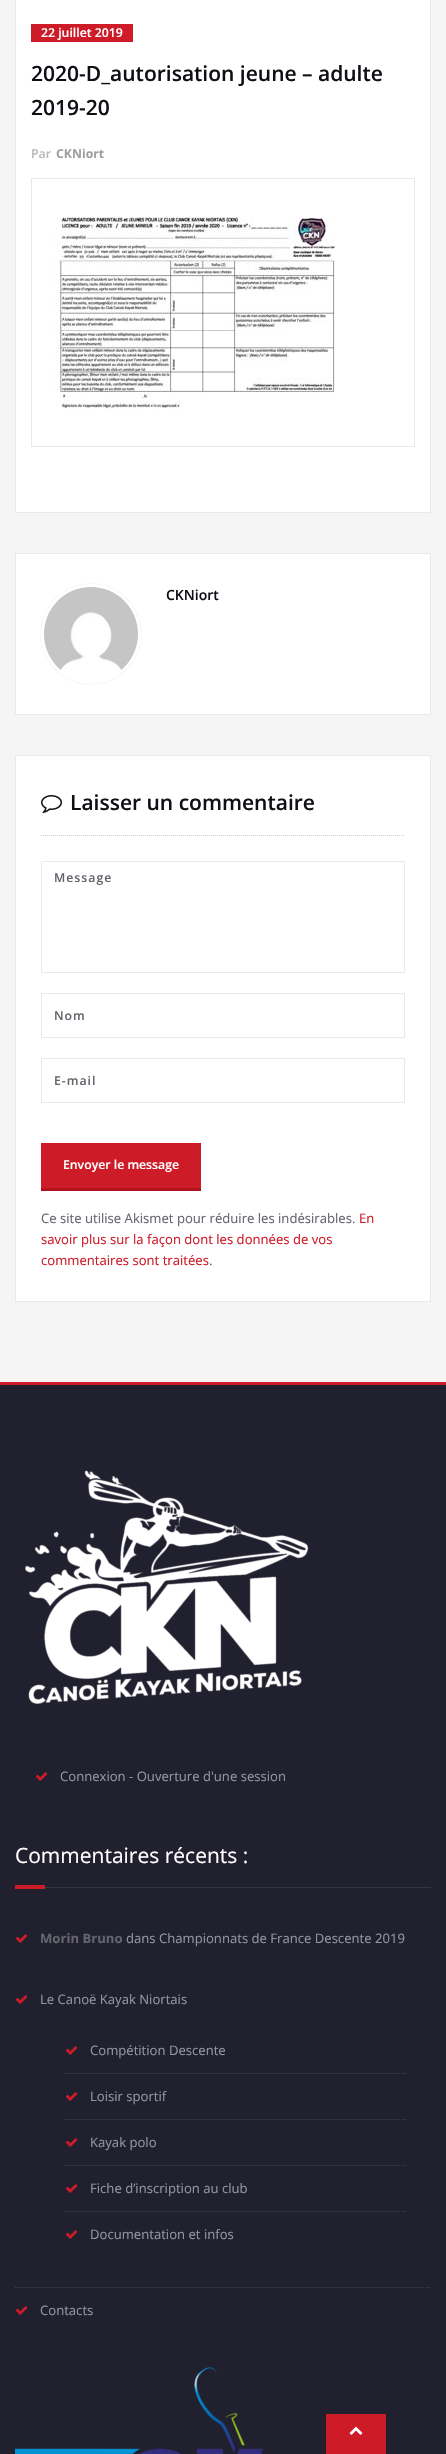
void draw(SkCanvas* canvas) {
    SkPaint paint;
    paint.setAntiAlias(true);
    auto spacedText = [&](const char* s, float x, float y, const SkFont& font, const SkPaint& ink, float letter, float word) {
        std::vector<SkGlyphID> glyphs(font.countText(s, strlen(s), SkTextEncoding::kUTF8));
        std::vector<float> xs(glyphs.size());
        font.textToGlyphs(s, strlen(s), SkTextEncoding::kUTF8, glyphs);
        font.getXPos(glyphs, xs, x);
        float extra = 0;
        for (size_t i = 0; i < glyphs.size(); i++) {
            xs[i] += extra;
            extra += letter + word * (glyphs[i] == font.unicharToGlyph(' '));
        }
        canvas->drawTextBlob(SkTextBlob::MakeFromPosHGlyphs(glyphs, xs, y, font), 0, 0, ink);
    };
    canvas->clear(0xFFF5F5F5);
    paint.setColor(0xFFFFFFFF);
    canvas->drawRect(SkRect::MakeXYWH(15.5f, -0.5f, 415, 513), paint);
    paint.setStyle(SkPaint::kStroke_Style);
    paint.setStrokeWidth(1);
    paint.setColor(0xFFE9E9E9);
    canvas->drawRect(SkRect::MakeXYWH(15.5f, -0.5f, 415, 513), paint);
    paint.setStyle(SkPaint::kFill_Style);
    paint.setColor(0xFFCE1B28);
    canvas->drawRect(SkRect::MakeXYWH(31, 24, 102, 18), paint);
    SkFont font1(fontMgr->matchFamilyStyle("Open Sans", SkFontStyle(600, SkFontStyle::kNormal_Width, SkFontStyle::kUpright_Slant)), 12.25f);
    font1.setSubpixel(true);
    paint.setColor(0xFFFFFFFF);
    canvas->drawString("22 juillet 2019", 41, 37, font1, paint);
    SkFont font2(fontMgr->matchFamilyStyle("Open Sans", SkFontStyle(600, SkFontStyle::kNormal_Width, SkFontStyle::kUpright_Slant)), 21);
    font2.setSubpixel(true);
    paint.setColor(0xFF0F0F16);
    canvas->drawString("2020-D_autorisation jeune – adulte", 31, 81, font2, paint);
    canvas->drawString("2019-20", 31, 115, font2, paint);
    paint.setColor(0xFFB9B9B9);
    canvas->drawString("Par", 31, 158, font1, paint);
    SkFont font3(fontMgr->matchFamilyStyle("Open Sans", SkFontStyle::Bold()), 12.25f);
    font3.setSubpixel(true);
    paint.setColor(0xFF9F9F9F);
    canvas->drawString("CKNiort", 56, 158, font3, paint);
    paint.setStyle(SkPaint::kStroke_Style);
    paint.setColor(0xFFE9E9E9);
    canvas->drawRect(SkRect::MakeXYWH(31.5f, 178.5f, 383, 268), paint);
    canvas->drawImageRect(SkImages::DeferredFromEncodedData(SkData::MakeFromFileName("img1.png")), SkRect::MakeXYWH(55, 217, 280, 192), SkSamplingOptions());
    paint.setStyle(SkPaint::kFill_Style);
    paint.setColor(0xFFFFFFFF);
    canvas->drawRect(SkRect::MakeXYWH(15.5f, 553.5f, 415, 161), paint);
    paint.setStyle(SkPaint::kStroke_Style);
    paint.setColor(0xFFE9E9E9);
    canvas->drawRect(SkRect::MakeXYWH(15.5f, 553.5f, 415, 161), paint);
    canvas->save();
    canvas->clipPath(SkPathBuilder(SkPathFillType::kEvenOdd).moveTo(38, 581).lineTo(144, 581).lineTo(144, 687).lineTo(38, 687).close().moveTo(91, 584).cubicTo(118.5f, 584, 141, 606.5f, 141, 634).cubicTo(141, 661.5f, 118.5f, 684, 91, 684).cubicTo(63.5f, 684, 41, 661.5f, 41, 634).cubicTo(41, 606.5f, 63.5f, 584, 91, 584).close().detach(), true);
    paint.setStyle(SkPaint::kFill_Style);
    paint.setColor(0xFFCCCCCC);
    paint.setMaskFilter(SkMaskFilter::MakeBlur(kNormal_SkBlurStyle, 0.5f));
    canvas->drawRoundRect(SkRect::MakeXYWH(41, 584, 100, 100), 50, 50, paint);
    paint.setMaskFilter(nullptr);
    canvas->restore();
    paint.setStyle(SkPaint::kStroke_Style);
    paint.setStrokeWidth(3);
    paint.setColor(0xFFFFFFFF);
    canvas->drawCircle(91, 634, 48.5f, paint);
    canvas->drawImageRect(SkImages::DeferredFromEncodedData(SkData::MakeFromFileName("img2.png")), SkRect::MakeXYWH(44, 587, 94, 83), SkSamplingOptions());
    SkFont font4(fontMgr->matchFamilyStyle("Open Sans", SkFontStyle(600, SkFontStyle::kNormal_Width, SkFontStyle::kUpright_Slant)), 14);
    font4.setSubpixel(true);
    paint.setStyle(SkPaint::kFill_Style);
    paint.setColor(0xFF0F0F16);
    canvas->drawString("CKNiort", 166, 600, font4, paint);
    paint.setColor(0xFFFFFFFF);
    canvas->drawRect(SkRect::MakeXYWH(15.5f, 755.5f, 415, 546), paint);
    paint.setStyle(SkPaint::kStroke_Style);
    paint.setStrokeWidth(1);
    paint.setColor(0xFFE9E9E9);
    canvas->drawRect(SkRect::MakeXYWH(15.5f, 755.5f, 415, 546), paint);
    paint.setColor(0xFFC5D1DC);
    paint.setPathEffect(SkDashPathEffect::Make({{1, 1}}, 0));
    canvas->drawPath(SkPathBuilder().moveTo(41, 835.5f).lineTo(405, 835.5f).detach(), paint);
    paint.setPathEffect(nullptr);
    canvas->drawImageRect(SkImages::DeferredFromEncodedData(SkData::MakeFromFileName("img3.png")), SkRect::MakeXYWH(41, 795, 21, 18), SkSamplingOptions());
    paint.setStyle(SkPaint::kFill_Style);
    paint.setColor(0xFF0F0F16);
    canvas->drawString("Laisser un commentaire", 70, 810, font2, paint);
    paint.setStyle(SkPaint::kStroke_Style);
    paint.setColor(0xFFE9E9E9);
    canvas->drawRect(SkRect::MakeXYWH(41.5f, 861.5f, 363, 111), paint);
    paint.setStyle(SkPaint::kFill_Style);
    paint.setColor(0xFF64646D);
    spacedText("Message", 54, 882, font1, paint, 1, 0);
    paint.setStyle(SkPaint::kStroke_Style);
    paint.setColor(0xFFE9E9E9);
    canvas->drawRect(SkRect::MakeXYWH(41.5f, 993.5f, 363, 44), paint);
    paint.setStyle(SkPaint::kFill_Style);
    paint.setColor(0xFF64646D);
    spacedText("Nom", 54, 1020, font1, paint, 1, 0);
    paint.setStyle(SkPaint::kStroke_Style);
    paint.setColor(0xFFE9E9E9);
    canvas->drawRect(SkRect::MakeXYWH(41.5f, 1058.5f, 363, 44), paint);
    paint.setStyle(SkPaint::kFill_Style);
    paint.setColor(0xFF64646D);
    spacedText("E-mail", 54, 1085, font1, paint, 1, 0);
    paint.setColor(0xFFB3131F);
    canvas->drawRect(SkRect::MakeXYWH(41, 1188, 160, 3), paint);
    paint.setColor(0xFFCE1B28);
    canvas->drawRect(SkRect::MakeXYWH(41, 1143, 160, 45), paint);
    paint.setColor(0xFFFFFFFF);
    canvas->drawString("Envoyer le message", 63, 1169, font1, paint);
    SkFont font5(fontMgr->matchFamilyStyle("Open Sans", SkFontStyle::Normal()), 13.1f);
    font5.setSubpixel(true);
    paint.setColor(0xFF64646D);
    canvas->drawString("Ce site utilise Akismet pour réduire les indésirables.", 41, 1223, font5, paint);
    paint.setColor(0xFFCE1B28);
    canvas->drawString("En", 359, 1223, font5, paint);
    canvas->drawString("savoir plus sur la façon dont les données de vos", 41, 1244, font5, paint);
    canvas->drawString("commentaires sont traitées", 41, 1265, font5, paint);
    paint.setColor(0xFF64646D);
    canvas->drawString(".", 209, 1265, font5, paint);
    paint.setColor(0xFF21202E);
    canvas->drawRect(SkRect::MakeXYWH(0, 1385, 446, 1069), paint);
    paint.setColor(0xFFCE1B28);
    canvas->drawRect(SkRect::MakeXYWH(0, 1382, 446, 3), paint);
    canvas->drawImageRect(SkImages::DeferredFromEncodedData(SkData::MakeFromFileName("img4.png")), SkRect::MakeXYWH(25, 1470, 284, 234), SkSamplingOptions());
    canvas->drawImageRect(SkImages::DeferredFromEncodedData(SkData::MakeFromFileName("img5.png")), SkRect::MakeXYWH(35, 1772, 13, 9), SkSamplingOptions());
    paint.setColor(0xFF9595A0);
    canvas->drawString("Connexion - Ouverture d'une session", 60, 1781, font5, paint);
    paint.setColor(0xFF363544);
    canvas->drawRect(SkRect::MakeXYWH(45, 1887, 386, 1), paint);
    SkFont font6(fontMgr->matchFamilyStyle("Open Sans", SkFontStyle::Normal()), 21);
    font6.setSubpixel(true);
    paint.setColor(0xFFFFFFFF);
    canvas->drawString("Commentaires récents :", 15, 1863, font6, paint);
    paint.setColor(0xFFCE1B28);
    canvas->drawRect(SkRect::MakeXYWH(15, 1885, 30, 4), paint);
    canvas->drawImageRect(SkImages::DeferredFromEncodedData(SkData::MakeFromFileName("img5.png")), SkRect::MakeXYWH(15, 1934, 13, 9), SkSamplingOptions());
    SkFont font7(fontMgr->matchFamilyStyle("Open Sans", SkFontStyle::Bold()), 13.1f);
    font7.setSubpixel(true);
    paint.setColor(0xFF64646D);
    canvas->drawString("Morin Bruno", 40, 1943, font7, paint);
    paint.setColor(0xFF9595A0);
    canvas->drawString("dans Championnats de France Descente 2019", 126, 1943, font5, paint);
    paint.setStyle(SkPaint::kStroke_Style);
    paint.setColor(0xFF403F4E);
    paint.setPathEffect(SkDashPathEffect::Make({{1, 1}}, 0));
    canvas->drawPath(SkPathBuilder().moveTo(15, 2287.5f).lineTo(431, 2287.5f).detach(), paint);
    paint.setPathEffect(nullptr);
    canvas->drawImageRect(SkImages::DeferredFromEncodedData(SkData::MakeFromFileName("img5.png")), SkRect::MakeXYWH(15, 1995, 13, 9), SkSamplingOptions());
    paint.setStyle(SkPaint::kFill_Style);
    paint.setColor(0xFF9595A0);
    canvas->drawString("Le Canoë Kayak Niortais", 40, 2004, font5, paint);
    paint.setStyle(SkPaint::kStroke_Style);
    paint.setColor(0xFF403F4E);
    paint.setPathEffect(SkDashPathEffect::Make({{1, 1}}, 0));
    canvas->drawPath(SkPathBuilder().moveTo(65, 2073.5f).lineTo(406, 2073.5f).detach(), paint);
    paint.setPathEffect(nullptr);
    canvas->drawImageRect(SkImages::DeferredFromEncodedData(SkData::MakeFromFileName("img5.png")), SkRect::MakeXYWH(65, 2046, 13, 9), SkSamplingOptions());
    paint.setStyle(SkPaint::kFill_Style);
    paint.setColor(0xFF9595A0);
    canvas->drawString("Compétition Descente", 90, 2055, font5, paint);
    paint.setStyle(SkPaint::kStroke_Style);
    paint.setColor(0xFF403F4E);
    paint.setPathEffect(SkDashPathEffect::Make({{1, 1}}, 0));
    canvas->drawPath(SkPathBuilder().moveTo(65, 2119.5f).lineTo(406, 2119.5f).detach(), paint);
    paint.setPathEffect(nullptr);
    canvas->drawImageRect(SkImages::DeferredFromEncodedData(SkData::MakeFromFileName("img5.png")), SkRect::MakeXYWH(65, 2092, 13, 9), SkSamplingOptions());
    paint.setStyle(SkPaint::kFill_Style);
    paint.setColor(0xFF9595A0);
    canvas->drawString("Loisir sportif", 90, 2101, font5, paint);
    paint.setStyle(SkPaint::kStroke_Style);
    paint.setColor(0xFF403F4E);
    paint.setPathEffect(SkDashPathEffect::Make({{1, 1}}, 0));
    canvas->drawPath(SkPathBuilder().moveTo(65, 2165.5f).lineTo(406, 2165.5f).detach(), paint);
    paint.setPathEffect(nullptr);
    canvas->drawImageRect(SkImages::DeferredFromEncodedData(SkData::MakeFromFileName("img5.png")), SkRect::MakeXYWH(65, 2138, 13, 9), SkSamplingOptions());
    paint.setStyle(SkPaint::kFill_Style);
    paint.setColor(0xFF9595A0);
    canvas->drawString("Kayak polo", 90, 2147, font5, paint);
    paint.setStyle(SkPaint::kStroke_Style);
    paint.setColor(0xFF403F4E);
    paint.setPathEffect(SkDashPathEffect::Make({{1, 1}}, 0));
    canvas->drawPath(SkPathBuilder().moveTo(65, 2211.5f).lineTo(406, 2211.5f).detach(), paint);
    paint.setPathEffect(nullptr);
    canvas->drawImageRect(SkImages::DeferredFromEncodedData(SkData::MakeFromFileName("img5.png")), SkRect::MakeXYWH(65, 2184, 13, 9), SkSamplingOptions());
    paint.setStyle(SkPaint::kFill_Style);
    paint.setColor(0xFF9595A0);
    canvas->drawString("Fiche d’inscription au club", 90, 2193, font5, paint);
    canvas->drawImageRect(SkImages::DeferredFromEncodedData(SkData::MakeFromFileName("img5.png")), SkRect::MakeXYWH(65, 2230, 13, 9), SkSamplingOptions());
    canvas->drawString("Documentation et infos", 90, 2239, font5, paint);
    canvas->drawImageRect(SkImages::DeferredFromEncodedData(SkData::MakeFromFileName("img5.png")), SkRect::MakeXYWH(15, 2306, 13, 9), SkSamplingOptions());
    canvas->drawString("Contacts", 40, 2315, font5, paint);
    canvas->drawImageRect(SkImages::DeferredFromEncodedData(SkData::MakeFromFileName("img6.png")), SkRect::MakeXYWH(15, 2367, 248, 87), SkSamplingOptions());
    paint.setColor(0xFFCE1B28);
    canvas->drawRect(SkRect::MakeXYWH(326, 2414, 60, 40), paint);
    canvas->drawImageRect(SkImages::DeferredFromEncodedData(SkData::MakeFromFileName("img7.png")), SkRect::MakeXYWH(349, 2426, 14, 9), SkSamplingOptions());
}
